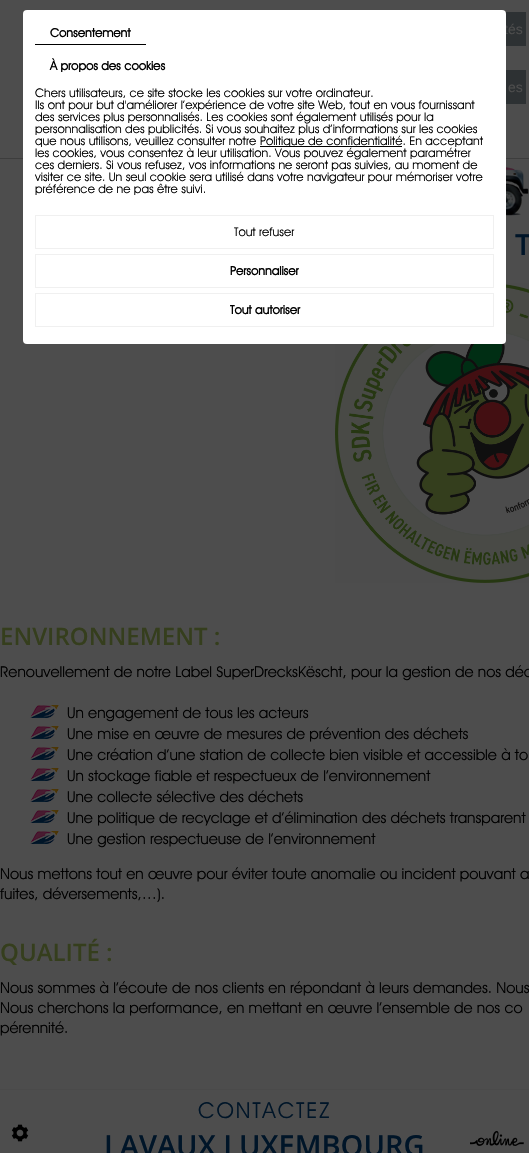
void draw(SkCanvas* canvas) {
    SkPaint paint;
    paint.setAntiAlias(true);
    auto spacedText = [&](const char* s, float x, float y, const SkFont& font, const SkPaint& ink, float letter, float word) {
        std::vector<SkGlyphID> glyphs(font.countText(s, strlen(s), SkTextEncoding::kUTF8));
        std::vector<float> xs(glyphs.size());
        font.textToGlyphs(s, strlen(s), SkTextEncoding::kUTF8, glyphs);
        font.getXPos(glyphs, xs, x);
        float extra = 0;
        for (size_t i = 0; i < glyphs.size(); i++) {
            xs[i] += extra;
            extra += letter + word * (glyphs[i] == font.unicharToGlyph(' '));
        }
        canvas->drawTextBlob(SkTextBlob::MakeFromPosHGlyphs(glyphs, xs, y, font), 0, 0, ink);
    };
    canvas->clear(0xFF4D4D4D);
    paint.setColor(0xFF3D3D3D);
    canvas->drawRect(SkRect::MakeXYWH(0, 158, 529, 1), paint);
    paint.setColor(0xFF2D3133);
    canvas->drawRect(SkRect::MakeXYWH(505, 12, 21, 34), paint);
    SkFont font1(fontMgr->matchFamilyStyle("Liberation Sans", SkFontStyle::Normal()), 14);
    font1.setSubpixel(true);
    paint.setColor(0xFF4D4D4D);
    canvas->drawString("tés", 504, 34, font1, paint);
    canvas->drawImageRect(SkImages::DeferredFromEncodedData(SkData::MakeFromFileName("img2.png")), SkRect::MakeXYWH(335, 283, 194, 300), SkSamplingOptions());
    paint.setColor(0xFFFFFFFF);
    canvas->drawRoundRect(SkRect::MakeXYWH(23, 10, 483, 334), 4, 4, paint);
    paint.setColor(0xFF000000);
    canvas->drawRect(SkRect::MakeXYWH(35, 44, 111, 1), paint);
    SkFont font2(fontMgr->matchFamilyStyle("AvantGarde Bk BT", SkFontStyle::Bold()), 12);
    font2.setSubpixel(true);
    canvas->drawString("Consentement", 50, 37, font2, paint);
    canvas->drawString("À propos des cookies", 50, 70, font2, paint);
    SkFont font3(fontMgr->matchFamilyStyle("AvantGarde Bk BT", SkFontStyle::Normal()), 12);
    font3.setSubpixel(true);
    canvas->drawString("Chers utilisateurs, ce site stocke les cookies sur votre ordinateur.", 35, 97, font3, paint);
    canvas->drawString("Ils ont pour but d'améliorer l’expérience de votre site Web, tout en vous fournissant", 35, 109, font3, paint);
    canvas->drawString("des services plus personnalisés. Les cookies sont également utilisés pour la", 35, 121, font3, paint);
    canvas->drawString("personnalisation des publicités. Si vous souhaitez plus d’informations sur les cookies", 35, 133, font3, paint);
    canvas->drawString("que nous utilisons, veuillez consulter notre", 35, 145, font3, paint);
    canvas->drawRect(SkRect::MakeXYWH(260, 146, 142, 1), paint);
    canvas->drawString("Politique de confidentialité. En acceptant", 260, 145, font3, paint);
    canvas->drawString("les cookies, vous consentez à leur utilisation. Vous pouvez également paramétrer", 35, 157, font3, paint);
    canvas->drawString("ces derniers. Si vous refusez, vos informations ne seront pas suivies, au moment de", 35, 169, font3, paint);
    canvas->drawString("visiter ce site. Un seul cookie sera utilisé dans votre navigateur pour mémoriser votre", 35, 181, font3, paint);
    canvas->drawString("préférence de ne pas être suivi.", 35, 193, font3, paint);
    paint.setStyle(SkPaint::kStroke_Style);
    paint.setStrokeWidth(1);
    paint.setColor(0xFFF0F0F0);
    canvas->drawRect(SkRect::MakeXYWH(35.5f, 215.5f, 458, 33), paint);
    paint.setStyle(SkPaint::kFill_Style);
    paint.setColor(0xFF000000);
    canvas->drawString("Tout refuser", 234, 236, font3, paint);
    paint.setStyle(SkPaint::kStroke_Style);
    paint.setColor(0xFFF0F0F0);
    canvas->drawRect(SkRect::MakeXYWH(35.5f, 254.5f, 458, 33), paint);
    paint.setStyle(SkPaint::kFill_Style);
    paint.setColor(0xFF000000);
    canvas->drawString("Personnaliser", 230, 275, font2, paint);
    paint.setStyle(SkPaint::kStroke_Style);
    paint.setColor(0xFFF0F0F0);
    canvas->drawRect(SkRect::MakeXYWH(35.5f, 293.5f, 458, 33), paint);
    paint.setStyle(SkPaint::kFill_Style);
    paint.setColor(0xFF000000);
    canvas->drawString("Tout autoriser", 230, 314, font2, paint);
    paint.setColor(0xFF2D3133);
    canvas->drawRect(SkRect::MakeXYWH(506, 70, 20, 34), paint);
    paint.setColor(0xFF4D4D4D);
    canvas->drawString("es", 508, 92, font1, paint);
    canvas->drawImageRect(SkImages::DeferredFromEncodedData(SkData::MakeFromFileName("img1.png")), SkRect::MakeXYWH(506, 167, 23, 49), SkSamplingOptions());
    paint.setColor(0xFF4A4A4A);
    canvas->drawRect(SkRect::MakeXYWH(0, 1089, 529, 1), paint);
    SkFont font4(fontMgr->matchFamilyStyle("Open Sans", SkFontStyle(600, SkFontStyle::kNormal_Width, SkFontStyle::kUpright_Slant)), 29);
    font4.setSubpixel(true);
    paint.setColor(0xFF001528);
    canvas->drawString("T", 515, 255, font4, paint);
    SkFont font5(fontMgr->matchFamilyStyle("Open Sans", SkFontStyle(600, SkFontStyle::kNormal_Width, SkFontStyle::kUpright_Slant)), 24);
    font5.setSubpixel(true);
    paint.setColor(0xFF353E1D);
    canvas->drawString("ENVIRONNEMENT :", 0, 645, font5, paint);
    SkFont font6(fontMgr->matchFamilyStyle("AvantGarde Bk BT", SkFontStyle::Normal()), 15);
    font6.setSubpixel(true);
    paint.setColor(0xFF000000);
    canvas->drawString("Renouvellement de notre Label SuperDrecksKëscht, pour la gestion de nos déc", 0, 677, font6, paint);
    canvas->drawImageRect(SkImages::DeferredFromEncodedData(SkData::MakeFromFileName("img3.png")), SkRect::MakeXYWH(30, 705, 29, 13), SkSamplingOptions());
    canvas->drawString("Un engagement de tous les acteurs", 67, 718, font6, paint);
    canvas->drawImageRect(SkImages::DeferredFromEncodedData(SkData::MakeFromFileName("img3.png")), SkRect::MakeXYWH(30, 726, 29, 13), SkSamplingOptions());
    canvas->drawString("Une mise en œuvre de mesures de prévention des déchets", 67, 739, font6, paint);
    canvas->drawImageRect(SkImages::DeferredFromEncodedData(SkData::MakeFromFileName("img3.png")), SkRect::MakeXYWH(30, 747, 29, 13), SkSamplingOptions());
    canvas->drawString("Une création d’une station de collecte bien visible et accessible à to", 67, 760, font6, paint);
    canvas->drawImageRect(SkImages::DeferredFromEncodedData(SkData::MakeFromFileName("img3.png")), SkRect::MakeXYWH(30, 768, 29, 13), SkSamplingOptions());
    canvas->drawString("Un stockage fiable et respectueux de l’environnement", 67, 781, font6, paint);
    canvas->drawImageRect(SkImages::DeferredFromEncodedData(SkData::MakeFromFileName("img3.png")), SkRect::MakeXYWH(30, 789, 29, 13), SkSamplingOptions());
    canvas->drawString("Une collecte sélective des déchets", 67, 802, font6, paint);
    canvas->drawImageRect(SkImages::DeferredFromEncodedData(SkData::MakeFromFileName("img3.png")), SkRect::MakeXYWH(30, 810, 29, 13), SkSamplingOptions());
    canvas->drawString("Une politique de recyclage et d’élimination des déchets transparent", 67, 823, font6, paint);
    canvas->drawImageRect(SkImages::DeferredFromEncodedData(SkData::MakeFromFileName("img3.png")), SkRect::MakeXYWH(30, 831, 29, 13), SkSamplingOptions());
    canvas->drawString("Une gestion respectueuse de l’environnement", 67, 844, font6, paint);
    canvas->drawString("Nous mettons tout en œuvre pour éviter toute anomalie ou incident pouvant a", 0, 879, font6, paint);
    canvas->drawString("fuites, déversements,…).", 0, 899, font6, paint);
    paint.setColor(0xFF353E1D);
    canvas->drawString("QUALITÉ :", 0, 961, font5, paint);
    paint.setColor(0xFF000000);
    canvas->drawString("Nous sommes à l’écoute de nos clients en répondant à leurs demandes. Nous", 0, 993, font6, paint);
    canvas->drawString("Nous cherchons la performance, en mettant en œuvre l’ensemble de nos co", 0, 1013, font6, paint);
    canvas->drawString("pérennité.", 0, 1033, font6, paint);
    canvas->drawImageRect(SkImages::DeferredFromEncodedData(SkData::MakeFromFileName("img4.png")), SkRect::MakeXYWH(11, 1124, 18, 18), SkSamplingOptions());
    SkFont font7(fontMgr->matchFamilyStyle("AvantGarde Bk BT", SkFontStyle::Normal()), 22);
    font7.setSubpixel(true);
    paint.setColor(0xFF001528);
    spacedText("CONTACTEZ", 198, 1118, font7, paint, 2, 0);
    canvas->drawString("LAVAUX LUXEMBOURG", 104, 1156, font4, paint);
    canvas->drawImageRect(SkImages::DeferredFromEncodedData(SkData::MakeFromFileName("img5.png")), SkRect::MakeXYWH(470, 1130, 54, 16), SkSamplingOptions());
}
